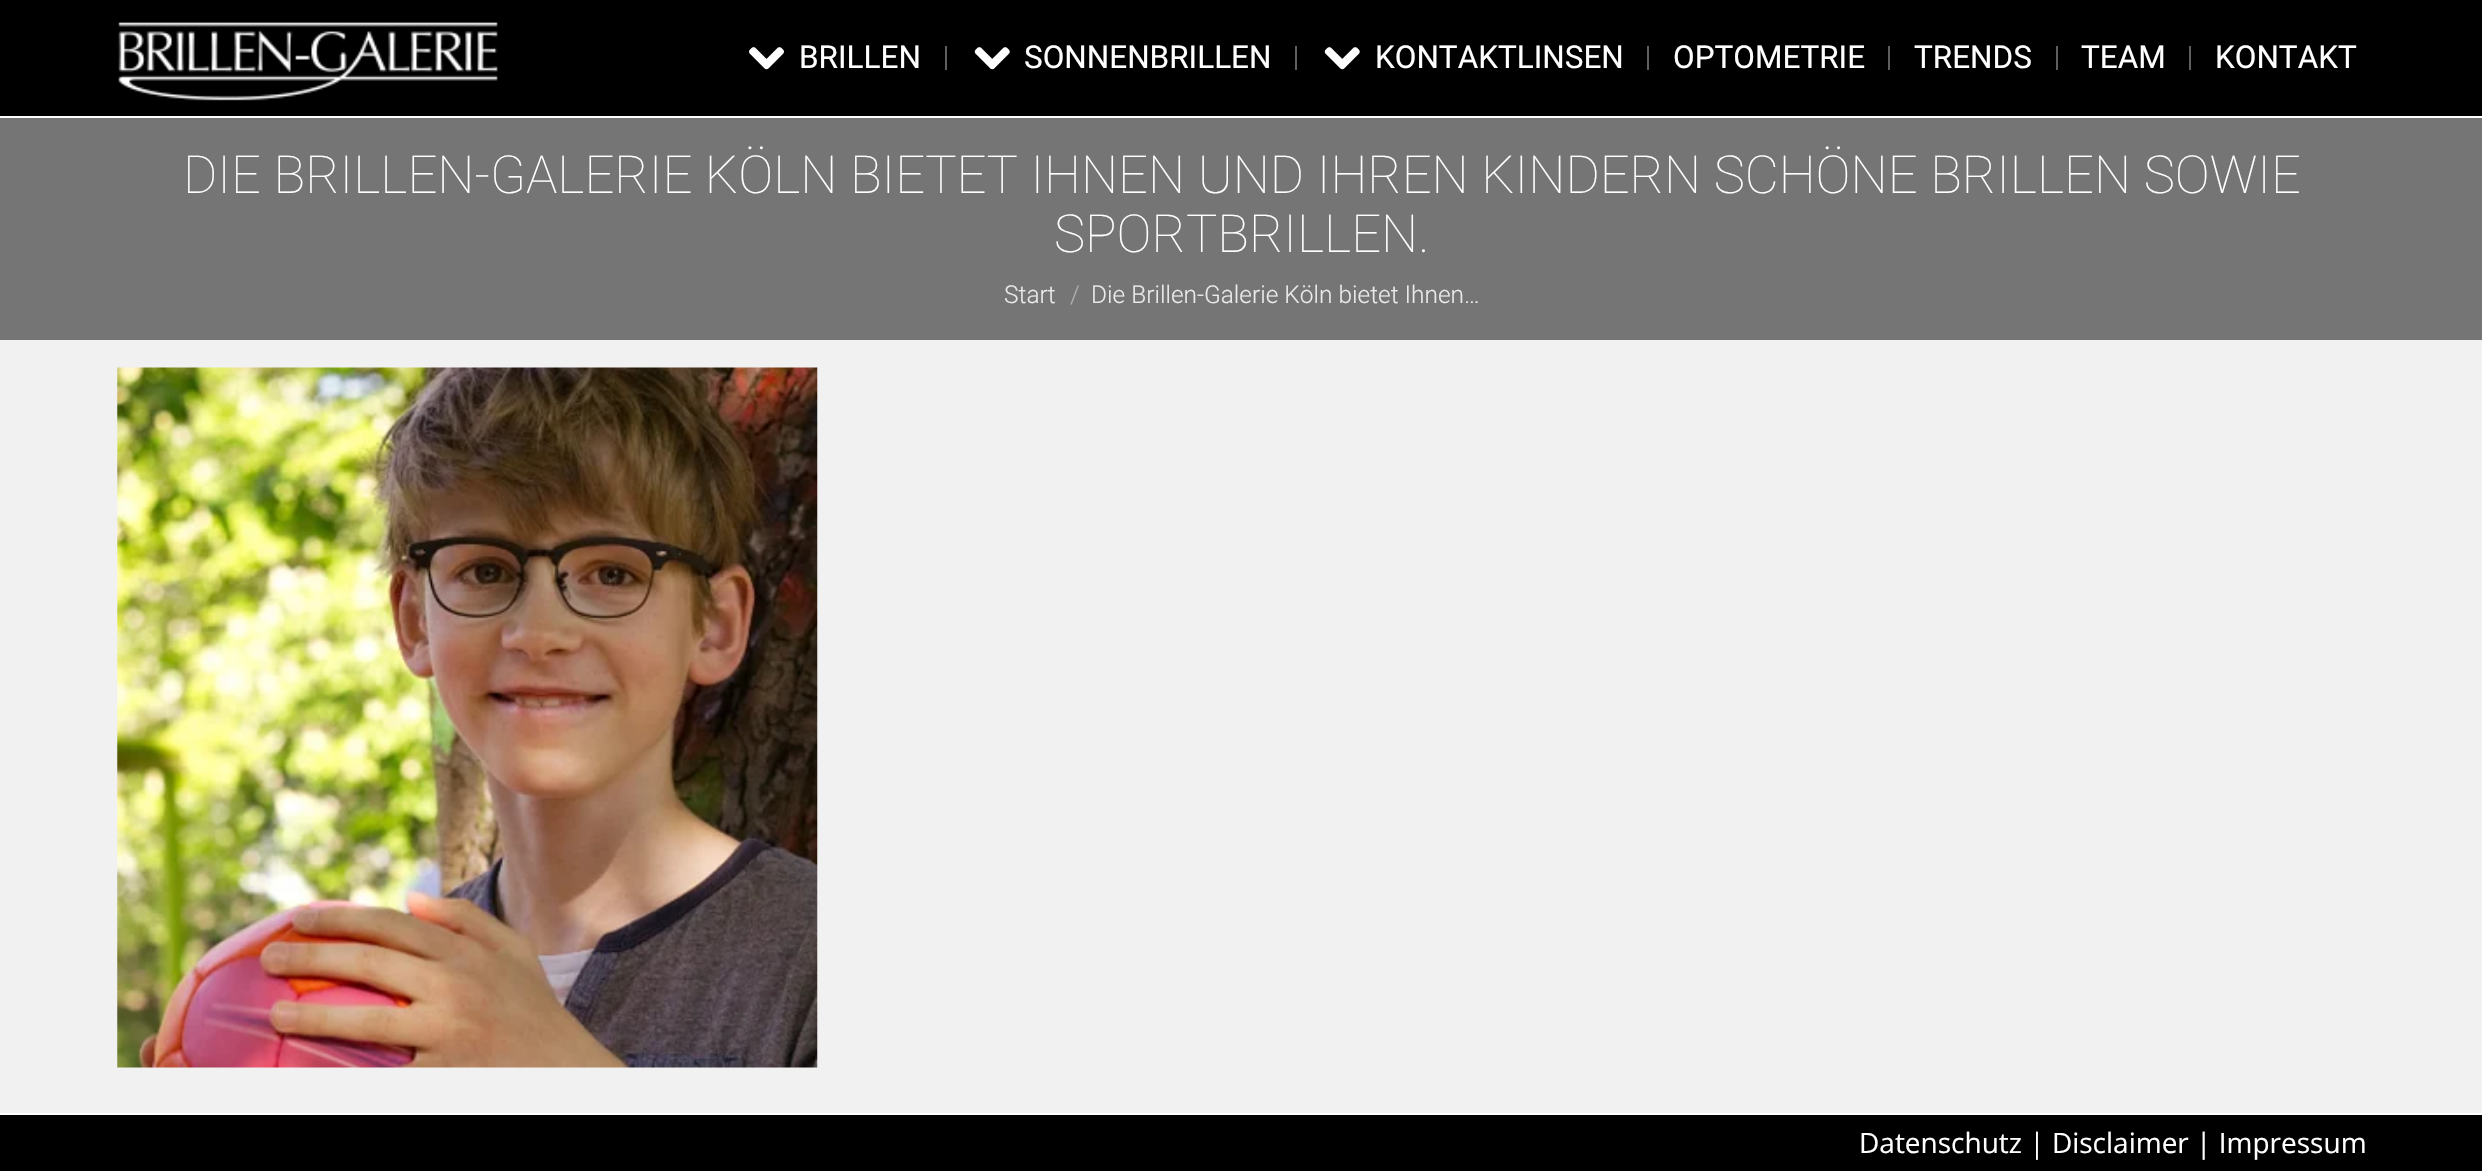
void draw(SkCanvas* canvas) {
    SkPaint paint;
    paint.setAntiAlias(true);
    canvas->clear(0xFFF1F1F1);
    paint.setColor(0xFF000000);
    canvas->drawRect(SkRect::MakeXYWH(0, 0, 2482, 116), paint);
    paint.setColor(0xFFFFFFFF);
    canvas->drawRect(SkRect::MakeXYWH(0, 116, 2482, 2), paint);
    canvas->drawImageRect(SkImages::DeferredFromEncodedData(SkData::MakeFromFileName("img1.png")), SkRect::MakeXYWH(118, 22, 380, 79), SkSamplingOptions());
    canvas->drawImageRect(SkImages::DeferredFromEncodedData(SkData::MakeFromFileName("img2.png")), SkRect::MakeXYWH(749, 47, 35, 23), SkSamplingOptions());
    SkFont font1(fontMgr->matchFamilyStyle("Roboto", SkFontStyle::Normal()), 31.5f);
    font1.setSubpixel(true);
    canvas->drawString("BRILLEN", 799, 68, font1, paint);
    paint.setColor(0xFF5E5E5E);
    canvas->drawRect(SkRect::MakeXYWH(945, 46, 2, 24), paint);
    canvas->drawImageRect(SkImages::DeferredFromEncodedData(SkData::MakeFromFileName("img3.png")), SkRect::MakeXYWH(974, 47, 36, 23), SkSamplingOptions());
    paint.setColor(0xFFFFFFFF);
    canvas->drawString("SONNENBRILLEN", 1024, 68, font1, paint);
    paint.setColor(0xFF5E5E5E);
    canvas->drawRect(SkRect::MakeXYWH(1295, 46, 2, 24), paint);
    canvas->drawImageRect(SkImages::DeferredFromEncodedData(SkData::MakeFromFileName("img3.png")), SkRect::MakeXYWH(1324, 47, 36, 23), SkSamplingOptions());
    paint.setColor(0xFFFFFFFF);
    canvas->drawString("KONTAKTLINSEN", 1375, 68, font1, paint);
    paint.setColor(0xFF5E5E5E);
    canvas->drawRect(SkRect::MakeXYWH(1647, 46, 2, 24), paint);
    paint.setColor(0xFFFFFFFF);
    canvas->drawString("OPTOMETRIE", 1673, 68, font1, paint);
    paint.setColor(0xFF5E5E5E);
    canvas->drawRect(SkRect::MakeXYWH(1888, 46, 2, 24), paint);
    paint.setColor(0xFFFFFFFF);
    canvas->drawString("TRENDS", 1914, 68, font1, paint);
    paint.setColor(0xFF5E5E5E);
    canvas->drawRect(SkRect::MakeXYWH(2056, 46, 2, 24), paint);
    paint.setColor(0xFFFFFFFF);
    canvas->drawString("TEAM", 2081, 68, font1, paint);
    paint.setColor(0xFF5E5E5E);
    canvas->drawRect(SkRect::MakeXYWH(2189, 46, 2, 24), paint);
    paint.setColor(0xFFFFFFFF);
    canvas->drawString("KONTAKT", 2215, 68, font1, paint);
    paint.setColor(0xFF757575);
    canvas->drawRect(SkRect::MakeXYWH(0, 118, 2482, 222), paint);
    SkFont font2(fontMgr->matchFamilyStyle("Roboto", SkFontStyle(100, SkFontStyle::kNormal_Width, SkFontStyle::kUpright_Slant)), 52.5f);
    font2.setSubpixel(true);
    paint.setColor(0xFFFFFFFF);
    canvas->drawString("DIE BRILLEN-GALERIE KÖLN BIETET IHNEN UND IHREN KINDERN SCHÖNE BRILLEN SOWIE", 183, 193, font2, paint);
    canvas->drawString("SPORTBRILLEN.", 1054, 252, font2, paint);
    SkFont font3(fontMgr->matchFamilyStyle("Roboto", SkFontStyle(300, SkFontStyle::kNormal_Width, SkFontStyle::kUpright_Slant)), 24.5f);
    font3.setSubpixel(true);
    paint.setColor(0xFFEAEAEA);
    canvas->drawString("Start", 1004, 303, font3, paint);
    paint.setColor(0xFFB0B0B0);
    canvas->drawString("/", 1070, 303, font3, paint);
    paint.setColor(0xFFEAEAEA);
    canvas->drawString("Die Brillen-Galerie Köln bietet Ihnen…", 1091, 303, font3, paint);
    canvas->drawImageRect(SkImages::DeferredFromEncodedData(SkData::MakeFromFileName("img4.png")), SkRect::MakeXYWH(117, 367, 701, 701), SkSamplingOptions());
    paint.setColor(0xFF000000);
    canvas->drawRect(SkRect::MakeXYWH(0, 1115, 2482, 56), paint);
    paint.setColor(0xFFFFFFFF);
    canvas->drawRect(SkRect::MakeXYWH(0, 1113, 2482, 2), paint);
    SkFont font4(fontMgr->matchFamilyStyle("Open Sans", SkFontStyle::Normal()), 28);
    font4.setSubpixel(true);
    canvas->drawString("Datenschutz | Disclaimer | Impressum", 1859, 1153, font4, paint);
}
